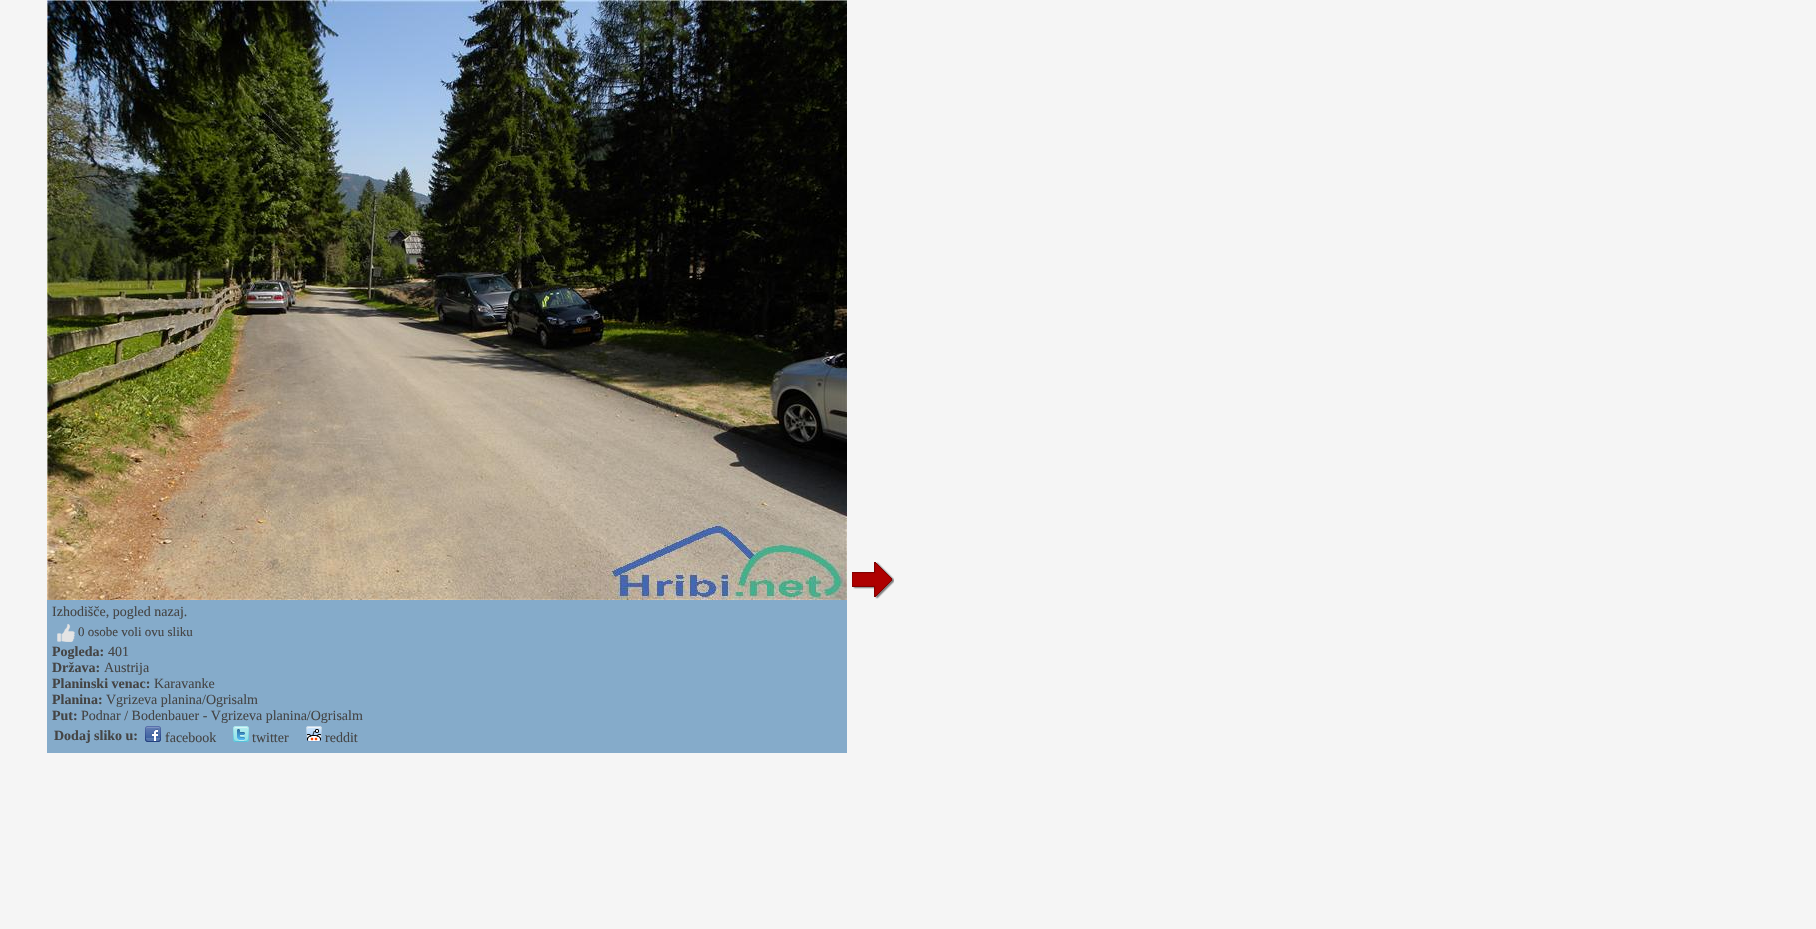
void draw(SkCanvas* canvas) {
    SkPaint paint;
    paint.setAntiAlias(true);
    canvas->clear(0xFFF5F5F5);
    canvas->drawImageRect(SkImages::DeferredFromEncodedData(SkData::MakeFromFileName("img1.png")), SkRect::MakeXYWH(852, 562, 42, 37), SkSamplingOptions());
    paint.setColor(0xFF85ABCA);
    canvas->drawRect(SkRect::MakeXYWH(47, 600, 800, 153), paint);
    canvas->drawImageRect(SkImages::DeferredFromEncodedData(SkData::MakeFromFileName("img2.png")), SkRect::MakeXYWH(47, 0, 800, 600), SkSamplingOptions());
    SkFont font1(fontMgr->matchFamilyStyle("Liberation Serif", SkFontStyle::Normal()), 14);
    font1.setSubpixel(true);
    paint.setColor(0xFF444444);
    canvas->drawString("Izhodišče, pogled nazaj.", 52, 616, font1, paint);
    canvas->drawImageRect(SkImages::DeferredFromEncodedData(SkData::MakeFromFileName("img3.png")), SkRect::MakeXYWH(57, 624, 18, 18), SkSamplingOptions());
    SkFont font2(fontMgr->matchFamilyStyle("Liberation Serif", SkFontStyle::Normal()), 13);
    font2.setSubpixel(true);
    canvas->drawString("0 osobe voli ovu sliku", 78, 636, font2, paint);
    SkFont font3(fontMgr->matchFamilyStyle("Liberation Serif", SkFontStyle::Bold()), 14);
    font3.setSubpixel(true);
    canvas->drawString("Pogleda:", 52, 656, font3, paint);
    canvas->drawString("401", 108, 656, font1, paint);
    canvas->drawString("Država:", 52, 672, font3, paint);
    canvas->drawString("Austrija", 104, 672, font1, paint);
    canvas->drawString("Planinski venac:", 52, 688, font3, paint);
    canvas->drawString("Karavanke", 154, 688, font1, paint);
    canvas->drawString("Planina:", 52, 704, font3, paint);
    canvas->drawString("Vgrizeva planina/Ogrisalm", 106, 704, font1, paint);
    canvas->drawString("Put:", 52, 720, font3, paint);
    canvas->drawString("Podnar / Bodenbauer - Vgrizeva planina/Ogrisalm", 81, 720, font1, paint);
    canvas->drawString("Dodaj sliko u:", 54, 740, font3, paint);
    canvas->drawImageRect(SkImages::DeferredFromEncodedData(SkData::MakeFromFileName("img4.png")), SkRect::MakeXYWH(145, 726, 16, 16), SkSamplingOptions());
    canvas->drawString("facebook", 165, 742, font1, paint);
    canvas->drawImageRect(SkImages::DeferredFromEncodedData(SkData::MakeFromFileName("img5.png")), SkRect::MakeXYWH(233, 726, 16, 16), SkSamplingOptions());
    canvas->drawString("twitter", 252, 742, font1, paint);
    canvas->drawImageRect(SkImages::DeferredFromEncodedData(SkData::MakeFromFileName("img6.png")), SkRect::MakeXYWH(306, 726, 16, 16), SkSamplingOptions());
    canvas->drawString("reddit", 325, 742, font1, paint);
}
